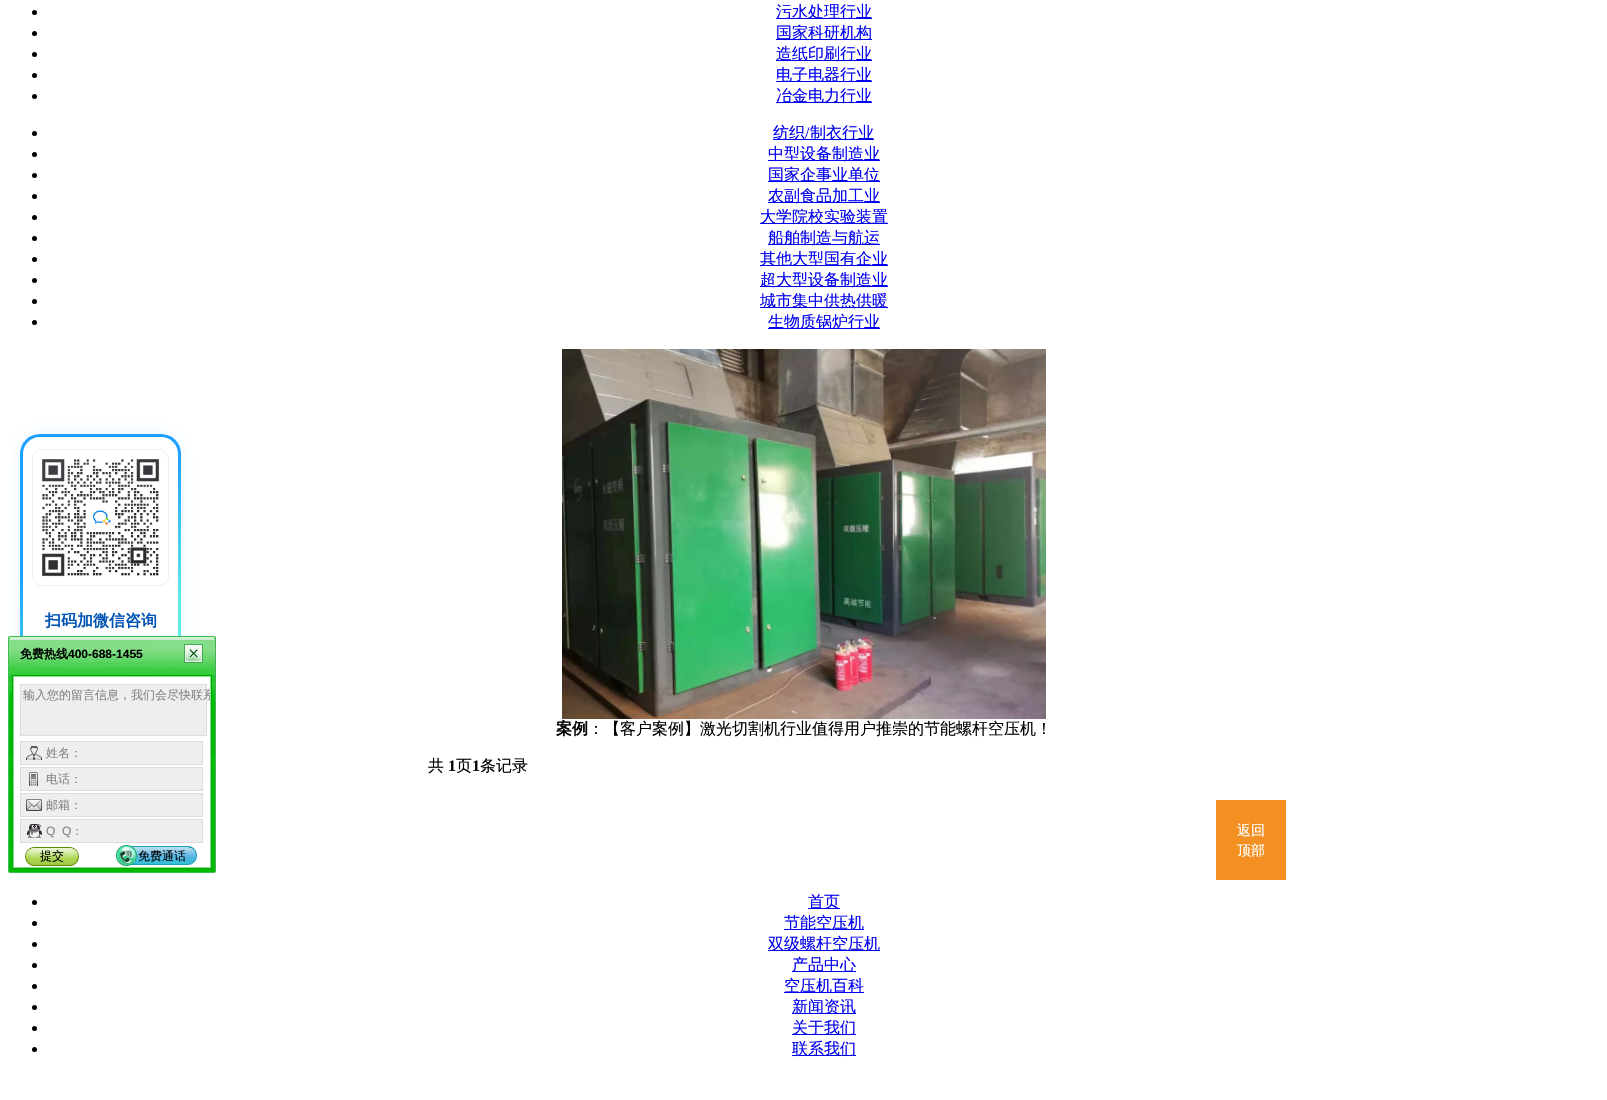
void draw(SkCanvas* canvas) {
    SkPaint paint;
    paint.setAntiAlias(true);
    canvas->clear(0xFFFFFFFF);
    paint.setColor(0x1A1C9FFF);
    paint.setMaskFilter(SkMaskFilter::MakeBlur(kNormal_SkBlurStyle, 7.5f));
    canvas->drawRoundRect(SkRect::MakeXYWH(20, 434, 161, 226), 20, 20, paint);
    paint.setMaskFilter(nullptr);
    {
        const SkColor colors[] = {0xFF5DEDE4, 0xFF1C9FFF};
        const float stops[] = {0.17f, 0.6f};
        const SkPoint ends[] = {{186, 656}, {15, 438}};
        paint.setShader(SkGradientShader::MakeLinear(ends, colors, stops, 2, SkTileMode::kClamp));
        paint.setAlpha(255);
    }
    canvas->drawRoundRect(SkRect::MakeXYWH(20, 434, 161, 226), 20, 20, paint);
    paint.setShader(nullptr);
    paint.setColor(0xFFFFFFFF);
    canvas->drawRoundRect(SkRect::MakeXYWH(23, 437, 155, 220), 17, 17, paint);
    paint.setStyle(SkPaint::kStroke_Style);
    paint.setStrokeWidth(1);
    paint.setColor(0xFFEEEEEE);
    canvas->drawRoundRect(SkRect::MakeXYWH(32.5f, 449.5f, 136, 136), 9.5f, 9.5f, paint);
    canvas->drawImageRect(SkImages::DeferredFromEncodedData(SkData::MakeFromFileName("img1.png")), SkRect::MakeXYWH(42, 459, 118, 118), SkSamplingOptions());
    SkFont font1(fontMgr->matchFamilyStyle("WenQuanYi Zen Hei", SkFontStyle::Bold()), 16);
    font1.setSubpixel(true);
    paint.setStyle(SkPaint::kFill_Style);
    paint.setColor(0xFF0053B4);
    canvas->drawString("扫码加微信咨询", 45, 626, font1, paint);
    paint.setColor(0xFF000000);
    canvas->drawCircle(34.5f, 12.5f, 2.5f, paint);
    paint.setColor(0xFF0000EE);
    canvas->drawRect(SkRect::MakeXYWH(776, 18, 96, 1), paint);
    SkFont font2(fontMgr->matchFamilyStyle("WenQuanYi Zen Hei", SkFontStyle(500, SkFontStyle::kNormal_Width, SkFontStyle::kUpright_Slant)), 16);
    font2.setSubpixel(true);
    canvas->drawString("污水处理行业", 776, 17, font2, paint);
    paint.setColor(0xFF000000);
    canvas->drawCircle(34.5f, 33.5f, 2.5f, paint);
    paint.setColor(0xFF0000EE);
    canvas->drawRect(SkRect::MakeXYWH(776, 39, 96, 1), paint);
    canvas->drawString("国家科研机构", 776, 38, font2, paint);
    paint.setColor(0xFF000000);
    canvas->drawCircle(34.5f, 54.5f, 2.5f, paint);
    paint.setColor(0xFF0000EE);
    canvas->drawRect(SkRect::MakeXYWH(776, 60, 96, 1), paint);
    canvas->drawString("造纸印刷行业", 776, 59, font2, paint);
    paint.setColor(0xFF000000);
    canvas->drawCircle(34.5f, 75.5f, 2.5f, paint);
    paint.setColor(0xFF0000EE);
    canvas->drawRect(SkRect::MakeXYWH(776, 81, 96, 1), paint);
    canvas->drawString("电子电器行业", 776, 80, font2, paint);
    paint.setColor(0xFF000000);
    canvas->drawCircle(34.5f, 96.5f, 2.5f, paint);
    paint.setColor(0xFF0000EE);
    canvas->drawRect(SkRect::MakeXYWH(776, 102, 96, 1), paint);
    canvas->drawString("冶金电力行业", 776, 101, font2, paint);
    paint.setColor(0xFF000000);
    canvas->drawCircle(34.5f, 133.5f, 2.5f, paint);
    paint.setColor(0xFF0000EE);
    canvas->drawRect(SkRect::MakeXYWH(773, 139, 101, 1), paint);
    canvas->drawString("纺织", 773, 138, font2, paint);
    SkFont font3(fontMgr->matchFamilyStyle("Liberation Serif", SkFontStyle::Normal()), 16);
    font3.setSubpixel(true);
    canvas->drawString("/", 805, 138, font3, paint);
    canvas->drawString("制衣行业", 810, 138, font2, paint);
    paint.setColor(0xFF000000);
    canvas->drawCircle(34.5f, 154.5f, 2.5f, paint);
    paint.setColor(0xFF0000EE);
    canvas->drawRect(SkRect::MakeXYWH(768, 160, 112, 1), paint);
    canvas->drawString("中型设备制造业", 768, 159, font2, paint);
    paint.setColor(0xFF000000);
    canvas->drawCircle(34.5f, 175.5f, 2.5f, paint);
    paint.setColor(0xFF0000EE);
    canvas->drawRect(SkRect::MakeXYWH(768, 181, 112, 1), paint);
    canvas->drawString("国家企事业单位", 768, 180, font2, paint);
    paint.setColor(0xFF000000);
    canvas->drawCircle(34.5f, 196.5f, 2.5f, paint);
    paint.setColor(0xFF0000EE);
    canvas->drawRect(SkRect::MakeXYWH(768, 202, 112, 1), paint);
    canvas->drawString("农副食品加工业", 768, 201, font2, paint);
    paint.setColor(0xFF000000);
    canvas->drawCircle(34.5f, 217.5f, 2.5f, paint);
    paint.setColor(0xFF0000EE);
    canvas->drawRect(SkRect::MakeXYWH(760, 223, 128, 1), paint);
    canvas->drawString("大学院校实验装置", 760, 222, font2, paint);
    paint.setColor(0xFF000000);
    canvas->drawCircle(34.5f, 238.5f, 2.5f, paint);
    paint.setColor(0xFF0000EE);
    canvas->drawRect(SkRect::MakeXYWH(768, 244, 112, 1), paint);
    canvas->drawString("船舶制造与航运", 768, 243, font2, paint);
    paint.setColor(0xFF000000);
    canvas->drawCircle(34.5f, 259.5f, 2.5f, paint);
    paint.setColor(0xFF0000EE);
    canvas->drawRect(SkRect::MakeXYWH(760, 265, 128, 1), paint);
    canvas->drawString("其他大型国有企业", 760, 264, font2, paint);
    paint.setColor(0xFF000000);
    canvas->drawCircle(34.5f, 280.5f, 2.5f, paint);
    paint.setColor(0xFF0000EE);
    canvas->drawRect(SkRect::MakeXYWH(760, 286, 128, 1), paint);
    canvas->drawString("超大型设备制造业", 760, 285, font2, paint);
    paint.setColor(0xFF000000);
    canvas->drawCircle(34.5f, 301.5f, 2.5f, paint);
    paint.setColor(0xFF0000EE);
    canvas->drawRect(SkRect::MakeXYWH(760, 307, 128, 1), paint);
    canvas->drawString("城市集中供热供暖", 760, 306, font2, paint);
    paint.setColor(0xFF000000);
    canvas->drawCircle(34.5f, 322.5f, 2.5f, paint);
    paint.setColor(0xFF0000EE);
    canvas->drawRect(SkRect::MakeXYWH(768, 328, 112, 1), paint);
    canvas->drawString("生物质锅炉行业", 768, 327, font2, paint);
    canvas->drawImageRect(SkImages::DeferredFromEncodedData(SkData::MakeFromFileName("img2.png")), SkRect::MakeXYWH(562, 349, 484, 370), SkSamplingOptions());
    paint.setColor(0xFF000000);
    canvas->drawString("案例", 556, 734, font1, paint);
    canvas->drawString("：【客户案例】激光切割机行业值得用户推崇的节能螺杆空压机！", 588, 734, font2, paint);
    canvas->drawString("共", 428, 771, font2, paint);
    SkFont font4(fontMgr->matchFamilyStyle("Liberation Serif", SkFontStyle::Bold()), 16);
    font4.setSubpixel(true);
    canvas->drawString("1", 448, 771, font4, paint);
    canvas->drawString("页", 456, 771, font2, paint);
    canvas->drawString("1", 472, 771, font4, paint);
    canvas->drawString("条记录", 480, 771, font2, paint);
    paint.setColor(0xFFF39021);
    canvas->drawRect(SkRect::MakeXYWH(1216, 800, 70, 80), paint);
    SkFont font5(fontMgr->matchFamilyStyle("WenQuanYi Zen Hei", SkFontStyle(500, SkFontStyle::kNormal_Width, SkFontStyle::kUpright_Slant)), 14);
    font5.setSubpixel(true);
    paint.setColor(0xFFFFFFFF);
    canvas->drawString("返回", 1237, 835, font5, paint);
    canvas->drawString("顶部", 1237, 855, font5, paint);
    paint.setColor(0xFF000000);
    canvas->drawCircle(34.5f, 902.5f, 2.5f, paint);
    paint.setColor(0xFF0000EE);
    canvas->drawRect(SkRect::MakeXYWH(808, 908, 32, 1), paint);
    canvas->drawString("首页", 808, 907, font2, paint);
    paint.setColor(0xFF000000);
    canvas->drawCircle(34.5f, 923.5f, 2.5f, paint);
    paint.setColor(0xFF0000EE);
    canvas->drawRect(SkRect::MakeXYWH(784, 929, 80, 1), paint);
    canvas->drawString("节能空压机", 784, 928, font2, paint);
    paint.setColor(0xFF000000);
    canvas->drawCircle(34.5f, 944.5f, 2.5f, paint);
    paint.setColor(0xFF0000EE);
    canvas->drawRect(SkRect::MakeXYWH(768, 950, 112, 1), paint);
    canvas->drawString("双级螺杆空压机", 768, 949, font2, paint);
    paint.setColor(0xFF000000);
    canvas->drawCircle(34.5f, 965.5f, 2.5f, paint);
    paint.setColor(0xFF0000EE);
    canvas->drawRect(SkRect::MakeXYWH(792, 971, 64, 1), paint);
    canvas->drawString("产品中心", 792, 970, font2, paint);
    paint.setColor(0xFF000000);
    canvas->drawCircle(34.5f, 986.5f, 2.5f, paint);
    paint.setColor(0xFF0000EE);
    canvas->drawRect(SkRect::MakeXYWH(784, 992, 80, 1), paint);
    canvas->drawString("空压机百科", 784, 991, font2, paint);
    paint.setColor(0xFF000000);
    canvas->drawCircle(34.5f, 1007.5f, 2.5f, paint);
    paint.setColor(0xFF0000EE);
    canvas->drawRect(SkRect::MakeXYWH(792, 1013, 64, 1), paint);
    canvas->drawString("新闻资讯", 792, 1012, font2, paint);
    paint.setColor(0xFF000000);
    canvas->drawCircle(34.5f, 1028.5f, 2.5f, paint);
    paint.setColor(0xFF0000EE);
    canvas->drawRect(SkRect::MakeXYWH(792, 1034, 64, 1), paint);
    canvas->drawString("关于我们", 792, 1033, font2, paint);
    paint.setColor(0xFF000000);
    canvas->drawCircle(34.5f, 1049.5f, 2.5f, paint);
    paint.setColor(0xFF0000EE);
    canvas->drawRect(SkRect::MakeXYWH(792, 1055, 64, 1), paint);
    canvas->drawString("联系我们", 792, 1054, font2, paint);
    canvas->drawImageRect(SkImages::DeferredFromEncodedData(SkData::MakeFromFileName("img3.png")), SkRect::MakeXYWH(8, 636, 208, 237), SkSamplingOptions());
    SkFont font6(fontMgr->matchFamilyStyle("WenQuanYi Zen Hei", SkFontStyle::Bold()), 12);
    font6.setSubpixel(true);
    paint.setColor(0xFF000000);
    canvas->drawString("免费热线", 20, 658, font6, paint);
    SkFont font7(fontMgr->matchFamilyStyle("Liberation Sans", SkFontStyle::Bold()), 12);
    font7.setSubpixel(true);
    canvas->drawString("400-688-1455", 68, 658, font7, paint);
    canvas->drawImageRect(SkImages::DeferredFromEncodedData(SkData::MakeFromFileName("img4.png")), SkRect::MakeXYWH(184, 644, 19, 19), SkSamplingOptions());
    paint.setColor(0xFFEEEEEE);
    canvas->drawRect(SkRect::MakeXYWH(20.5f, 684.5f, 186, 51), paint);
    paint.setStyle(SkPaint::kStroke_Style);
    paint.setColor(0xFFDDDDDD);
    canvas->drawRect(SkRect::MakeXYWH(20.5f, 684.5f, 186, 51), paint);
    canvas->save();
    canvas->clipRect(SkRect::MakeXYWH(21, 685, 189, 54));
    SkFont font8(fontMgr->matchFamilyStyle("WenQuanYi Zen Hei", SkFontStyle(500, SkFontStyle::kNormal_Width, SkFontStyle::kUpright_Slant)), 12);
    font8.setSubpixel(true);
    paint.setStyle(SkPaint::kFill_Style);
    paint.setColor(0xFF848484);
    canvas->drawString("输入您的留言信息，我们会尽快联系", 23, 699, font8, paint);
    canvas->restore();
    paint.setColor(0xFFEEEEEE);
    canvas->drawRect(SkRect::MakeXYWH(20.5f, 741.5f, 182, 23), paint);
    paint.setStyle(SkPaint::kStroke_Style);
    paint.setColor(0xFFDDDDDD);
    canvas->drawRect(SkRect::MakeXYWH(20.5f, 741.5f, 182, 23), paint);
    canvas->drawImageRect(SkImages::DeferredFromEncodedData(SkData::MakeFromFileName("img5.png")), SkRect::MakeXYWH(26, 746, 16, 14), SkSamplingOptions());
    paint.setStyle(SkPaint::kFill_Style);
    paint.setColor(0xFF848484);
    canvas->drawString("姓名：", 46, 757, font8, paint);
    paint.setColor(0xFFEEEEEE);
    canvas->drawRect(SkRect::MakeXYWH(20.5f, 767.5f, 182, 23), paint);
    paint.setStyle(SkPaint::kStroke_Style);
    paint.setColor(0xFFDDDDDD);
    canvas->drawRect(SkRect::MakeXYWH(20.5f, 767.5f, 182, 23), paint);
    canvas->drawImageRect(SkImages::DeferredFromEncodedData(SkData::MakeFromFileName("img6.png")), SkRect::MakeXYWH(29, 772, 9, 14), SkSamplingOptions());
    paint.setStyle(SkPaint::kFill_Style);
    paint.setColor(0xFF848484);
    canvas->drawString("电话：", 46, 783, font8, paint);
    paint.setColor(0xFFEEEEEE);
    canvas->drawRect(SkRect::MakeXYWH(20.5f, 793.5f, 182, 23), paint);
    paint.setStyle(SkPaint::kStroke_Style);
    paint.setColor(0xFFDDDDDD);
    canvas->drawRect(SkRect::MakeXYWH(20.5f, 793.5f, 182, 23), paint);
    canvas->drawImageRect(SkImages::DeferredFromEncodedData(SkData::MakeFromFileName("img7.png")), SkRect::MakeXYWH(26, 799, 16, 12), SkSamplingOptions());
    paint.setStyle(SkPaint::kFill_Style);
    paint.setColor(0xFF848484);
    canvas->drawString("邮箱：", 46, 809, font8, paint);
    paint.setColor(0xFFEEEEEE);
    canvas->drawRect(SkRect::MakeXYWH(20.5f, 819.5f, 182, 23), paint);
    paint.setStyle(SkPaint::kStroke_Style);
    paint.setColor(0xFFDDDDDD);
    canvas->drawRect(SkRect::MakeXYWH(20.5f, 819.5f, 182, 23), paint);
    canvas->drawImageRect(SkImages::DeferredFromEncodedData(SkData::MakeFromFileName("img8.png")), SkRect::MakeXYWH(27, 824, 15, 14), SkSamplingOptions());
    SkFont font9(fontMgr->matchFamilyStyle("Liberation Sans", SkFontStyle::Normal()), 12);
    font9.setSubpixel(true);
    paint.setStyle(SkPaint::kFill_Style);
    paint.setColor(0xFF848484);
    canvas->drawString("Q  Q", 46, 835, font9, paint);
    canvas->drawString("：", 71, 835, font8, paint);
    canvas->drawImageRect(SkImages::DeferredFromEncodedData(SkData::MakeFromFileName("img9.png")), SkRect::MakeXYWH(25, 847, 54, 19), SkSamplingOptions());
    paint.setColor(0xFF000000);
    canvas->drawString("提交", 40, 860, font8, paint);
    canvas->drawImageRect(SkImages::DeferredFromEncodedData(SkData::MakeFromFileName("img10.png")), SkRect::MakeXYWH(116, 845, 81, 21), SkSamplingOptions());
    canvas->drawString("免费通话", 138, 860, font8, paint);
}
